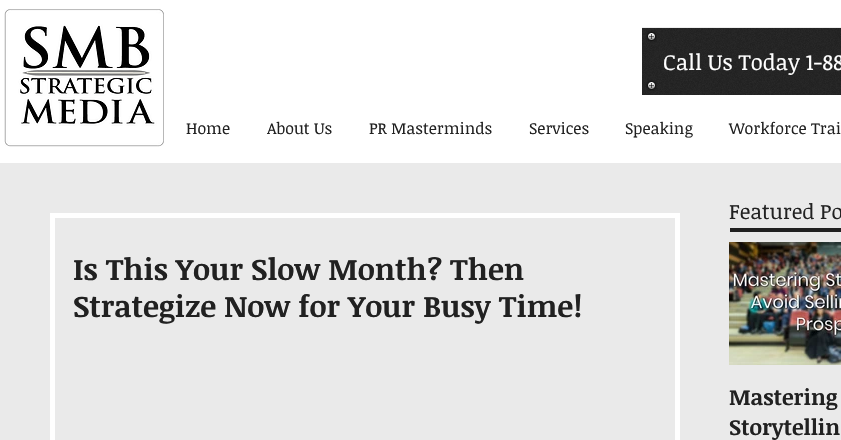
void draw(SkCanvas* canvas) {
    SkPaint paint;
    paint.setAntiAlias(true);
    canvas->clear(0xFFEAEAEA);
    paint.setColor(0xFFFFFFFF);
    canvas->drawRect(SkRect::MakeXYWH(0, 0, 841, 163), paint);
    canvas->drawImageRect(SkImages::DeferredFromEncodedData(SkData::MakeFromFileName("img1.png")), SkRect::MakeXYWH(4, 9, 160, 138), SkSamplingOptions());
    paint.setColor(0xFF232323);
    canvas->drawRect(SkRect::MakeXYWH(642, 27, 199, 68), paint);
    canvas->drawImageRect(SkImages::DeferredFromEncodedData(SkData::MakeFromFileName("img2.png")), SkRect::MakeXYWH(642, 27, 199, 68), SkSamplingOptions());
    paint.setColor(0xEBFFFFFF);
    canvas->drawRect(SkRect::MakeXYWH(642, 27, 199, 1), paint);
    canvas->drawImageRect(SkImages::DeferredFromEncodedData(SkData::MakeFromFileName("img3.png")), SkRect::MakeXYWH(646, 31, 11, 11), SkSamplingOptions());
    SkFont font1(fontMgr->matchFamilyStyle("Noticia Text", SkFontStyle::Normal()), 22);
    font1.setSubpixel(true);
    paint.setColor(0xFFFFFFFF);
    canvas->drawString("Call Us Today 1-88", 663, 70, font1, paint);
    canvas->drawImageRect(SkImages::DeferredFromEncodedData(SkData::MakeFromFileName("img4.png")), SkRect::MakeXYWH(646, 80, 11, 11), SkSamplingOptions());
    SkFont font2(fontMgr->matchFamilyStyle("Noticia Text", SkFontStyle::Normal()), 16);
    font2.setSubpixel(true);
    paint.setColor(0xFF212121);
    canvas->drawString("Home", 186, 134, font2, paint);
    canvas->drawString("About Us", 267, 134, font2, paint);
    canvas->drawString("PR Masterminds", 369, 134, font2, paint);
    canvas->drawString("Services", 529, 134, font2, paint);
    canvas->drawString("Speaking", 625, 134, font2, paint);
    canvas->drawString("Workforce Trai", 729, 134, font2, paint);
    SkFont font3(fontMgr->matchFamilyStyle("Noticia Text", SkFontStyle::Normal()), 21);
    font3.setSubpixel(true);
    canvas->drawString("Featured Po", 729, 219, font3, paint);
    canvas->drawRect(SkRect::MakeXYWH(730, 228, 111, 4), paint);
    paint.setStyle(SkPaint::kStroke_Style);
    paint.setStrokeWidth(5);
    paint.setColor(0xFFFFFFFF);
    canvas->drawRect(SkRect::MakeXYWH(52.5f, 215.5f, 625, 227), paint);
    SkFont font4(fontMgr->matchFamilyStyle("Noticia Text", SkFontStyle::Bold()), 30);
    font4.setSubpixel(true);
    paint.setStyle(SkPaint::kFill_Style);
    paint.setColor(0xFF212121);
    canvas->drawString("Is This Your Slow Month? Then", 73, 280, font4, paint);
    canvas->drawString("Strategize Now for Your Busy Time!", 73, 317, font4, paint);
    canvas->drawImageRect(SkImages::DeferredFromEncodedData(SkData::MakeFromFileName("img5.png")), SkRect::MakeXYWH(729, 242, 112, 123), SkSamplingOptions());
    SkFont font5(fontMgr->matchFamilyStyle("Noticia Text", SkFontStyle::Bold()), 22);
    font5.setSubpixel(true);
    canvas->drawString("Mastering", 729, 405, font5, paint);
    canvas->drawString("Storytellin", 729, 435, font5, paint);
}
